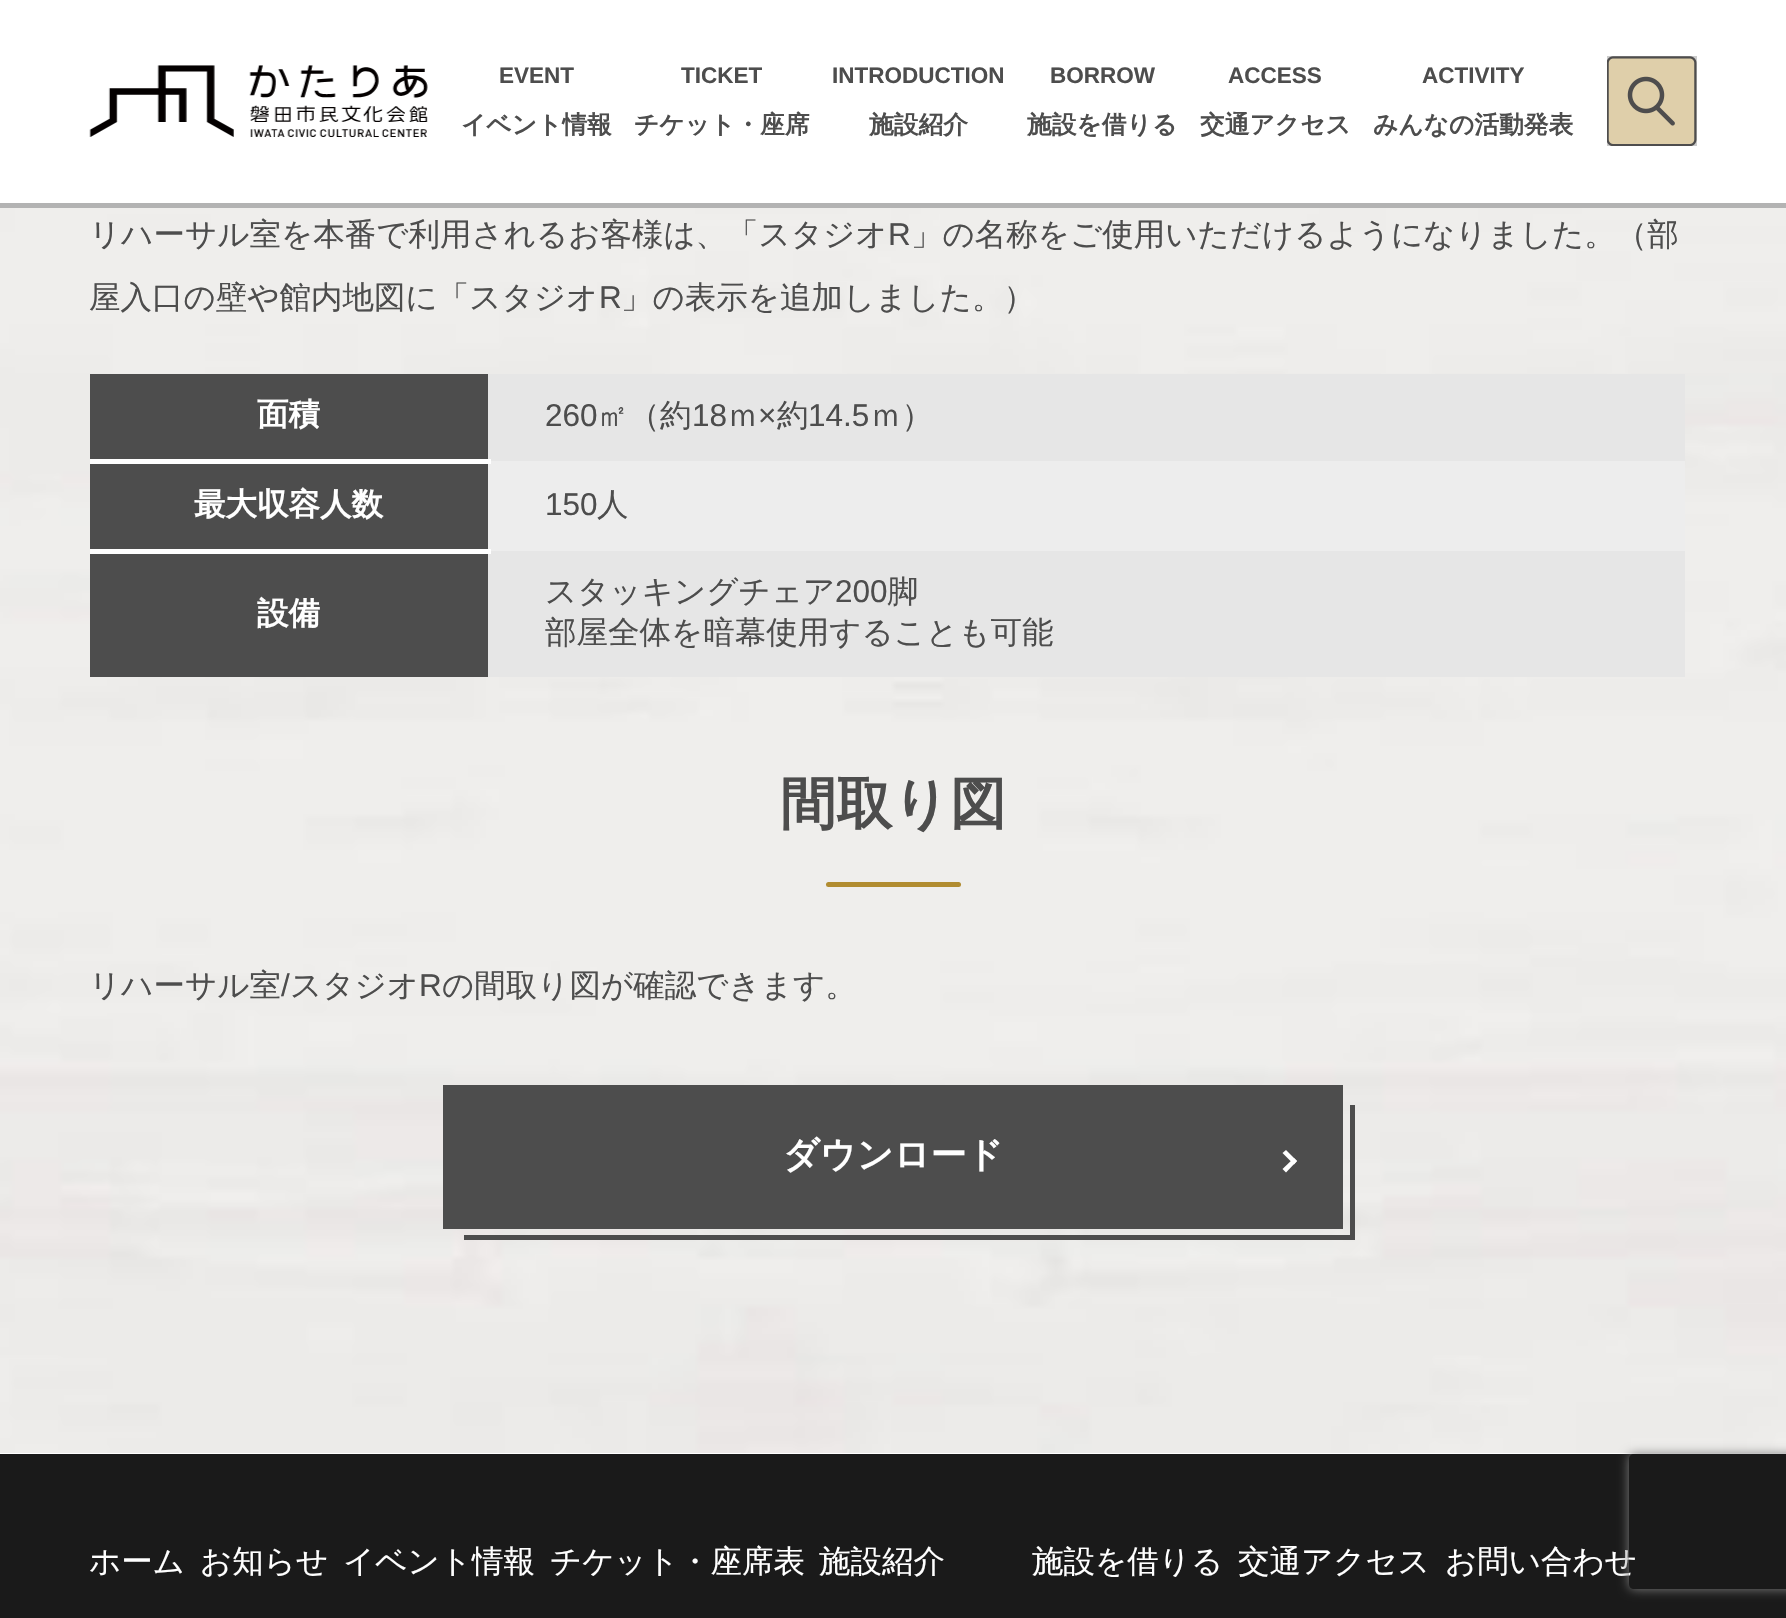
void draw(SkCanvas* canvas) {
    SkPaint paint;
    paint.setAntiAlias(true);
    canvas->clear(0xFFFFFFFF);
    paint.setColor(0xFFB3B3B3);
    canvas->drawRect(SkRect::MakeXYWH(0, 203, 1786, 5), paint);
    canvas->drawImageRect(SkImages::DeferredFromEncodedData(SkData::MakeFromFileName("img1.png")), SkRect::MakeXYWH(89, 65, 339, 72), SkSamplingOptions());
    SkFont font1(fontMgr->matchFamilyStyle("Liberation Sans", SkFontStyle::Bold()), 22.5f);
    font1.setSubpixel(true);
    paint.setColor(0xFF4D4D4D);
    canvas->drawString("EVENT", 499, 83, font1, paint);
    SkFont font2(fontMgr->matchFamilyStyle("WenQuanYi Zen Hei", SkFontStyle::Bold()), 24.75f);
    font2.setSubpixel(true);
    canvas->drawString("イベント情報", 461, 133, font2, paint);
    canvas->drawString("TICKET", 681, 83, font1, paint);
    canvas->drawString("チケット・座席", 634, 133, font2, paint);
    canvas->drawString("INTRODUCTION", 832, 83, font1, paint);
    canvas->drawString("施設紹介", 869, 133, font2, paint);
    canvas->drawString("BORROW", 1050, 83, font1, paint);
    canvas->drawString("施設を借りる", 1027, 133, font2, paint);
    canvas->drawString("ACCESS", 1228, 83, font1, paint);
    canvas->drawString("交通アクセス", 1200, 133, font2, paint);
    canvas->drawString("ACTIVITY", 1422, 83, font1, paint);
    canvas->drawString("みんなの活動発表", 1373, 133, font2, paint);
    paint.setColor(0xFFCBCBCB);
    canvas->drawRect(SkRect::MakeXYWH(1607, 56, 90, 90), paint);
    canvas->drawImageRect(SkImages::DeferredFromEncodedData(SkData::MakeFromFileName("img2.png")), SkRect::MakeXYWH(1607, 56, 90, 90), SkSamplingOptions());
    canvas->drawImageRect(SkImages::DeferredFromEncodedData(SkData::MakeFromFileName("img3.png")), SkRect::MakeXYWH(0, 208, 1786, 1245), SkSamplingOptions());
    SkFont font3(fontMgr->matchFamilyStyle("WenQuanYi Zen Hei", SkFontStyle(500, SkFontStyle::kNormal_Width, SkFontStyle::kUpright_Slant)), 31.5f);
    font3.setSubpixel(true);
    paint.setColor(0xFF4D4D4D);
    canvas->drawString("リハーサル室を本番で利用されるお客様は、「スタジオ", 89, 245, font3, paint);
    SkFont font4(fontMgr->matchFamilyStyle("Liberation Sans", SkFontStyle::Normal()), 31.5f);
    font4.setSubpixel(true);
    canvas->drawString("R", 888, 245, font4, paint);
    canvas->drawString("」の名称をご使用いただけるようになりました。（部", 911, 245, font3, paint);
    canvas->drawString("屋入口の壁や館内地図に「スタジオ", 89, 308, font3, paint);
    canvas->drawString("R", 599, 308, font4, paint);
    canvas->drawString("」の表示を追加しました。）", 621, 308, font3, paint);
    canvas->drawRect(SkRect::MakeXYWH(90, 374, 398, 85), paint);
    paint.setColor(0xFFE6E6E6);
    canvas->drawRect(SkRect::MakeXYWH(488, 374, 1197, 87), paint);
    paint.setColor(0xFFEDEDED);
    canvas->drawRect(SkRect::MakeXYWH(488, 461, 1197, 90), paint);
    paint.setColor(0xFFFFFFFF);
    canvas->drawRect(SkRect::MakeXYWH(90, 459, 401, 5), paint);
    SkFont font5(fontMgr->matchFamilyStyle("WenQuanYi Zen Hei", SkFontStyle::Bold()), 31.5f);
    font5.setSubpixel(true);
    canvas->drawString("面積", 257, 425, font5, paint);
    paint.setColor(0xFF4D4D4D);
    canvas->drawString("260", 545, 426, font4, paint);
    canvas->drawString("㎡（約", 597, 426, font3, paint);
    canvas->drawString("18", 692, 426, font4, paint);
    canvas->drawString("ｍ", 727, 426, font3, paint);
    canvas->drawString("×", 758, 426, font4, paint);
    canvas->drawString("約", 777, 426, font3, paint);
    canvas->drawString("14.5", 808, 426, font4, paint);
    canvas->drawString("ｍ）", 870, 426, font3, paint);
    canvas->drawRect(SkRect::MakeXYWH(90, 464, 398, 85), paint);
    paint.setColor(0xFFE6E6E6);
    canvas->drawRect(SkRect::MakeXYWH(488, 551, 1197, 126), paint);
    paint.setColor(0xFFFFFFFF);
    canvas->drawRect(SkRect::MakeXYWH(90, 549, 401, 5), paint);
    canvas->drawString("最大収容人数", 194, 515, font5, paint);
    paint.setColor(0xFF4D4D4D);
    canvas->drawString("150", 545, 515, font4, paint);
    canvas->drawString("人", 597, 515, font3, paint);
    canvas->drawRect(SkRect::MakeXYWH(90, 554, 398, 123), paint);
    paint.setColor(0xFFFFFFFF);
    canvas->drawString("設備", 257, 624, font5, paint);
    paint.setColor(0xFF4D4D4D);
    canvas->drawString("スタッキングチェア", 545, 602, font3, paint);
    canvas->drawString("200", 835, 602, font4, paint);
    canvas->drawString("脚", 887, 602, font3, paint);
    canvas->drawString("部屋全体を暗幕使用することも可能", 545, 643, font3, paint);
    SkFont font6(fontMgr->matchFamilyStyle("WenQuanYi Zen Hei", SkFontStyle::Bold()), 56.25f);
    font6.setSubpixel(true);
    canvas->drawString("間取り図", 780, 823, font6, paint);
    paint.setColor(0xFFB18C30);
    canvas->drawRoundRect(SkRect::MakeXYWH(826, 882, 135, 5), 2.5f, 2.5f, paint);
    paint.setColor(0xFF4D4D4D);
    canvas->drawString("リハーサル室", 89, 996, font3, paint);
    canvas->drawString("/", 281, 996, font4, paint);
    canvas->drawString("スタジオ", 290, 996, font3, paint);
    canvas->drawString("R", 419, 996, font4, paint);
    canvas->drawString("の間取り図が確認できます。", 442, 996, font3, paint);
    canvas->drawRect(SkRect::MakeXYWH(443, 1085, 900, 144), paint);
    SkFont font7(fontMgr->matchFamilyStyle("WenQuanYi Zen Hei", SkFontStyle::Bold()), 36);
    font7.setSubpixel(true);
    paint.setColor(0xFFFFFFFF);
    canvas->drawString("ダウンロード", 783, 1167, font7, paint);
    canvas->drawPath(SkPathBuilder().moveTo(1286, 1150).lineTo(1297, 1161).lineTo(1294, 1164.5f).lineTo(1282.5f, 1153).close().detach(), paint);
    canvas->drawPath(SkPathBuilder().moveTo(1294, 1158).lineTo(1297, 1161).lineTo(1286, 1172.5f).lineTo(1282.5f, 1169).close().detach(), paint);
    paint.setColor(0xFF4D4D4D);
    canvas->drawRect(SkRect::MakeXYWH(1350, 1105, 5, 135), paint);
    canvas->drawRect(SkRect::MakeXYWH(464, 1235, 891, 5), paint);
    paint.setColor(0xFF1A1A1A);
    canvas->drawRect(SkRect::MakeXYWH(0, 1454, 1786, 164), paint);
    paint.setColor(0xFFFFFFFF);
    canvas->drawString("ホーム", 89, 1572, font3, paint);
    canvas->drawString("お知らせ", 200, 1572, font3, paint);
    canvas->drawString("イベント情報", 343, 1572, font3, paint);
    canvas->drawString("チケット・座席表", 550, 1572, font3, paint);
    canvas->drawString("施設紹介", 819, 1572, font3, paint);
    canvas->drawString("施設を借りる", 1032, 1572, font3, paint);
    canvas->drawString("交通アクセス", 1238, 1572, font3, paint);
    canvas->drawString("お問い合わせ", 1445, 1572, font3, paint);
    canvas->save();
    canvas->clipPath(SkPathBuilder(SkPathFillType::kEvenOdd).moveTo(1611, 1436).lineTo(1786, 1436).lineTo(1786, 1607).lineTo(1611, 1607).close().moveTo(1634, 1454).lineTo(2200, 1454).cubicTo(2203, 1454, 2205, 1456, 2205, 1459).lineTo(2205, 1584).cubicTo(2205, 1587, 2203, 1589, 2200, 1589).lineTo(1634, 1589).cubicTo(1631, 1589, 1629, 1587, 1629, 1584).lineTo(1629, 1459).cubicTo(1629, 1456, 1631, 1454, 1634, 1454).close().detach(), true);
    paint.setColor(0xFF808080);
    paint.setMaskFilter(SkMaskFilter::MakeBlur(kNormal_SkBlurStyle, 5.5f));
    canvas->drawRoundRect(SkRect::MakeXYWH(1629, 1454, 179, 135), 5, 5, paint);
    paint.setMaskFilter(nullptr);
    canvas->restore();
}
